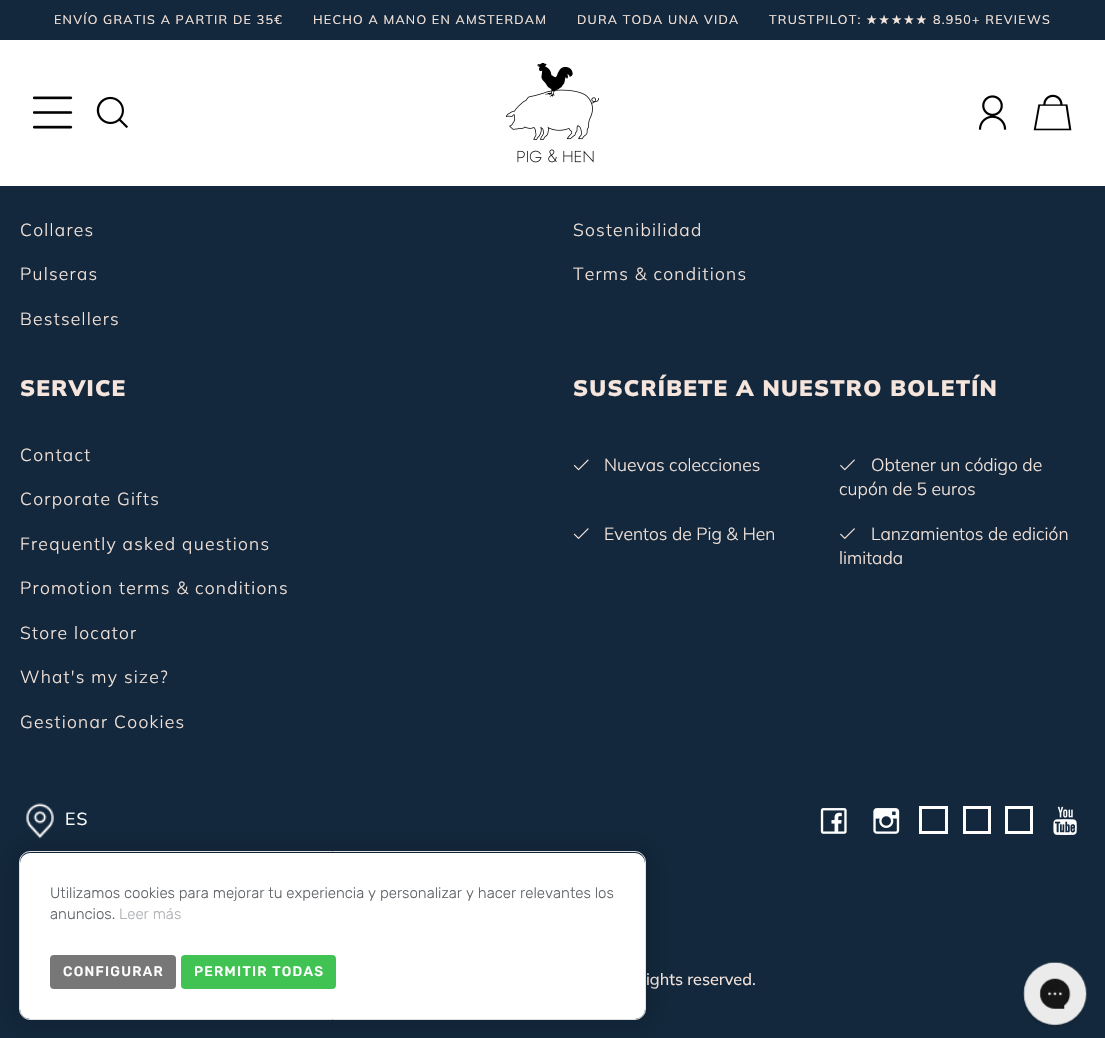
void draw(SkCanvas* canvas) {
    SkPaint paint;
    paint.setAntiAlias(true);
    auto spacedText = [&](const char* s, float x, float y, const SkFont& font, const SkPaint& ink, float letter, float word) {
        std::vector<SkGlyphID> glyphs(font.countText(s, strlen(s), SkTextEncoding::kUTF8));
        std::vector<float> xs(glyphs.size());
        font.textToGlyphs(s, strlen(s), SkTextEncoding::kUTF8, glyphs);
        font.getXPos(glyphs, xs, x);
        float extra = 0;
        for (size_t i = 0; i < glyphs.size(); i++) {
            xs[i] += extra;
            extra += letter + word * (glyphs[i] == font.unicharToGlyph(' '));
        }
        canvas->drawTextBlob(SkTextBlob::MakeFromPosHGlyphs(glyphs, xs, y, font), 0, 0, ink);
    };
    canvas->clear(0xFF13283C);
    paint.setColor(0xFFFFFFFF);
    canvas->drawRect(SkRect::MakeXYWH(0, 40, 1105, 146), paint);
    SkFont font1(fontMgr->matchFamilyStyle("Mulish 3", SkFontStyle(200, SkFontStyle::kNormal_Width, SkFontStyle::kUpright_Slant)), 12.5f);
    font1.setSubpixel(true);
    paint.setColor(0xFFF5E5DC);
    spacedText("ENVÍO GRATIS A PARTIR DE 35€", 54, 24, font1, paint, 1.25f, 0);
    spacedText("HECHO A MANO EN AMSTERDAM", 313, 24, font1, paint, 1.25f, 0);
    spacedText("DURA TODA UNA VIDA", 577, 24, font1, paint, 1.25f, 0);
    spacedText("TRUSTPILOT:", 769, 24, font1, paint, 1.25f, 0);
    SkFont font2(fontMgr->matchFamilyStyle("DejaVu Sans", SkFontStyle::Normal()), 12.5f);
    font2.setSubpixel(true);
    spacedText("★★★★★", 866, 24, font2, paint, 1.25f, 0);
    spacedText("8.950+ REVIEWS", 933, 24, font1, paint, 1.25f, 0);
    canvas->drawImageRect(SkImages::DeferredFromEncodedData(SkData::MakeFromFileName("img1.png")), SkRect::MakeXYWH(33, 96, 40, 33), SkSamplingOptions());
    canvas->drawImageRect(SkImages::DeferredFromEncodedData(SkData::MakeFromFileName("img2.png")), SkRect::MakeXYWH(96, 96, 32, 33), SkSamplingOptions());
    canvas->drawImageRect(SkImages::DeferredFromEncodedData(SkData::MakeFromFileName("img3.png")), SkRect::MakeXYWH(506, 63, 93, 100), SkSamplingOptions());
    canvas->drawImageRect(SkImages::DeferredFromEncodedData(SkData::MakeFromFileName("img4.png")), SkRect::MakeXYWH(978, 95, 29, 35), SkSamplingOptions());
    canvas->drawImageRect(SkImages::DeferredFromEncodedData(SkData::MakeFromFileName("img5.png")), SkRect::MakeXYWH(1033, 94, 39, 37), SkSamplingOptions());
    SkFont font3(fontMgr->matchFamilyStyle("Mulish", SkFontStyle(200, SkFontStyle::kNormal_Width, SkFontStyle::kUpright_Slant)), 17.5f);
    font3.setSubpixel(true);
    spacedText("Collares", 20, 236, font3, paint, 1.25f, 0);
    spacedText("Pulseras", 20, 280, font3, paint, 1.25f, 0);
    spacedText("Bestsellers", 20, 325, font3, paint, 1.25f, 0);
    spacedText("Sostenibilidad", 573, 236, font3, paint, 1.25f, 0);
    spacedText("Terms & conditions", 573, 280, font3, paint, 1.25f, 0);
    SkFont font4(fontMgr->matchFamilyStyle("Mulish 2", SkFontStyle(200, SkFontStyle::kNormal_Width, SkFontStyle::kUpright_Slant)), 22.5f);
    font4.setSubpixel(true);
    spacedText("SERVICE", 20, 396, font4, paint, 1.25f, 0);
    spacedText("Contact", 20, 461, font3, paint, 1.25f, 0);
    spacedText("Corporate Gifts", 20, 505, font3, paint, 1.25f, 0);
    spacedText("Frequently asked questions", 20, 550, font3, paint, 1.25f, 0);
    spacedText("Promotion terms & conditions", 20, 594, font3, paint, 1.25f, 0);
    spacedText("Store locator", 20, 639, font3, paint, 1.25f, 0);
    spacedText("What's my size?", 20, 683, font3, paint, 1.25f, 0);
    spacedText("Gestionar Cookies", 20, 728, font3, paint, 1.25f, 0);
    spacedText("SUSCRÍBETE A NUESTRO BOLETÍN", 573, 396, font4, paint, 1.25f, 0);
    canvas->drawImageRect(SkImages::DeferredFromEncodedData(SkData::MakeFromFileName("img6.png")), SkRect::MakeXYWH(573, 459, 16, 12), SkSamplingOptions());
    canvas->drawString("Nuevas colecciones", 604, 471, font3, paint);
    canvas->drawImageRect(SkImages::DeferredFromEncodedData(SkData::MakeFromFileName("img7.png")), SkRect::MakeXYWH(840, 459, 15, 12), SkSamplingOptions());
    canvas->drawString("Obtener un código de", 871, 471, font3, paint);
    canvas->drawString("cupón de 5 euros", 839, 495, font3, paint);
    canvas->drawImageRect(SkImages::DeferredFromEncodedData(SkData::MakeFromFileName("img8.png")), SkRect::MakeXYWH(573, 528, 16, 11), SkSamplingOptions());
    canvas->drawString("Eventos de Pig & Hen", 604, 540, font3, paint);
    canvas->drawImageRect(SkImages::DeferredFromEncodedData(SkData::MakeFromFileName("img9.png")), SkRect::MakeXYWH(840, 528, 15, 11), SkSamplingOptions());
    canvas->drawString("Lanzamientos de edición", 871, 540, font3, paint);
    canvas->drawString("limitada", 839, 564, font3, paint);
    canvas->drawImageRect(SkImages::DeferredFromEncodedData(SkData::MakeFromFileName("img10.png")), SkRect::MakeXYWH(26, 803, 28, 36), SkSamplingOptions());
    SkFont font5(fontMgr->matchFamilyStyle("Mulish 3", SkFontStyle(200, SkFontStyle::kNormal_Width, SkFontStyle::kUpright_Slant)), 17.5f);
    font5.setSubpixel(true);
    paint.setColor(0xFFFFFFFF);
    spacedText("ES", 65, 825, font5, paint, 1.25f, 0);
    canvas->drawImageRect(SkImages::DeferredFromEncodedData(SkData::MakeFromFileName("img11.png")), SkRect::MakeXYWH(820, 808, 27, 26), SkSamplingOptions());
    canvas->drawImageRect(SkImages::DeferredFromEncodedData(SkData::MakeFromFileName("img12.png")), SkRect::MakeXYWH(873, 808, 27, 26), SkSamplingOptions());
    paint.setStyle(SkPaint::kStroke_Style);
    paint.setStrokeWidth(3);
    canvas->drawRect(SkRect::MakeXYWH(920.5f, 807.5f, 26, 25), paint);
    canvas->drawRect(SkRect::MakeXYWH(964.5f, 807.5f, 25, 25), paint);
    canvas->drawRect(SkRect::MakeXYWH(1006.5f, 807.5f, 25, 25), paint);
    canvas->drawImageRect(SkImages::DeferredFromEncodedData(SkData::MakeFromFileName("img13.png")), SkRect::MakeXYWH(1053, 806, 24, 29), SkSamplingOptions());
    SkFont font6(fontMgr->matchFamilyStyle("Mulish 3", SkFontStyle(200, SkFontStyle::kNormal_Width, SkFontStyle::kUpright_Slant)), 16.25f);
    font6.setSubpixel(true);
    paint.setStyle(SkPaint::kFill_Style);
    paint.setColor(0xFFF5E5DC);
    canvas->drawString("ights reserved.", 646, 985, font6, paint);
    paint.setColor(0x1A000000);
    paint.setMaskFilter(SkMaskFilter::MakeBlur(kNormal_SkBlurStyle, 10));
    canvas->drawRoundRect(SkRect::MakeXYWH(10, 843, 645, 186), 20, 20, paint);
    paint.setMaskFilter(nullptr);
    paint.setStyle(SkPaint::kStroke_Style);
    paint.setStrokeWidth(1);
    paint.setColor(0xFFDFE1E5);
    canvas->drawRoundRect(SkRect::MakeXYWH(19.5f, 851.5f, 626, 168), 10.5f, 10.5f, paint);
    paint.setStyle(SkPaint::kFill_Style);
    paint.setColor(0xFFFFFFFF);
    canvas->drawRoundRect(SkRect::MakeXYWH(20, 853, 625, 166), 10, 10, paint);
    SkFont font7(fontMgr->matchFamilyStyle("Rubik", SkFontStyle(300, SkFontStyle::kNormal_Width, SkFontStyle::kUpright_Slant)), 15);
    font7.setSubpixel(true);
    paint.setColor(0xFF5F6368);
    canvas->drawString("Utilizamos cookies para mejorar tu experiencia y personalizar y hacer relevantes los", 50, 898, font7, paint);
    canvas->drawString("anuncios.", 50, 919, font7, paint);
    paint.setColor(0xFFAFB1B4);
    canvas->drawString("Leer más", 119, 919, font7, paint);
    paint.setColor(0xFF777777);
    canvas->drawRoundRect(SkRect::MakeXYWH(50, 955, 126, 34), 4, 4, paint);
    SkFont font8(fontMgr->matchFamilyStyle("Rubik", SkFontStyle(500, SkFontStyle::kNormal_Width, SkFontStyle::kUpright_Slant)), 13.75f);
    font8.setSubpixel(true);
    paint.setColor(0xFFFFFFFF);
    spacedText("CONFIGURAR", 63, 976, font8, paint, 1.25f, 0);
    paint.setColor(0xFF40C353);
    canvas->drawRoundRect(SkRect::MakeXYWH(181, 955, 155, 34), 4, 4, paint);
    paint.setColor(0xFFFFFFFF);
    spacedText("PERMITIR TODAS", 194, 976, font8, paint, 1.25f, 0);
    canvas->drawImageRect(SkImages::DeferredFromEncodedData(SkData::MakeFromFileName("img14.png")), SkRect::MakeXYWH(1023, 962, 64, 65), SkSamplingOptions());
}
